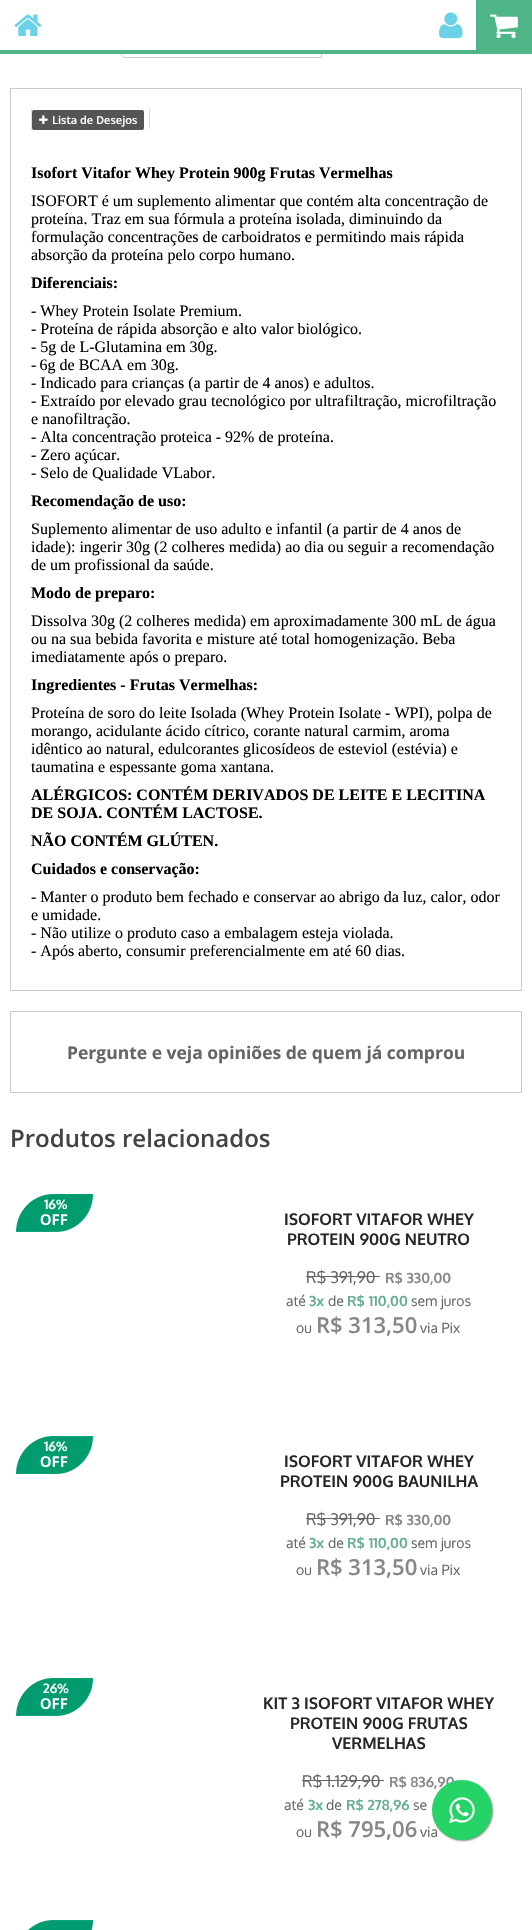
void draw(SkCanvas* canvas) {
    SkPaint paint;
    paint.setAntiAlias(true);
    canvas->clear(0xFFFFFFFF);
    paint.setStyle(SkPaint::kStroke_Style);
    paint.setStrokeWidth(1);
    paint.setColor(0xFFCCCCCC);
    canvas->drawPath(SkPathBuilder().moveTo(125, 16.5f).lineTo(321.5f, 16.5f).lineTo(321.5f, 57.5f).lineTo(125, 57.5f).cubicTo(123, 57.5f, 121.5f, 56, 121.5f, 54).lineTo(121.5f, 20).cubicTo(121.5f, 18, 123, 16.5f, 125, 16.5f).close().detach(), paint);
    paint.setStyle(SkPaint::kFill_Style);
    paint.setColor(0xFFFFFFFF);
    canvas->drawRect(SkRect::MakeXYWH(121, 16, 201, 34), paint);
    paint.setColor(0xFF4DB588);
    canvas->drawRect(SkRect::MakeXYWH(0, 50, 532, 4), paint);
    canvas->drawImageRect(SkImages::DeferredFromEncodedData(SkData::MakeFromFileName("img1.png")), SkRect::MakeXYWH(14, 14, 28, 22), SkSamplingOptions());
    canvas->drawImageRect(SkImages::DeferredFromEncodedData(SkData::MakeFromFileName("img2.png")), SkRect::MakeXYWH(439, 12, 24, 27), SkSamplingOptions());
    canvas->drawRect(SkRect::MakeXYWH(476, 0, 56, 50), paint);
    canvas->drawImageRect(SkImages::DeferredFromEncodedData(SkData::MakeFromFileName("img3.png")), SkRect::MakeXYWH(490, 14, 28, 25), SkSamplingOptions());
    paint.setStyle(SkPaint::kStroke_Style);
    paint.setColor(0xFFCACACA);
    canvas->drawRect(SkRect::MakeXYWH(10.5f, 88.5f, 511, 902), paint);
    paint.setStyle(SkPaint::kFill_Style);
    paint.setColor(0xFFDDDDDD);
    canvas->drawRect(SkRect::MakeXYWH(31, 109, 1, 21), paint);
    paint.setColor(0xFF555555);
    canvas->drawRoundRect(SkRect::MakeXYWH(32, 110, 112, 20), 2, 2, paint);
    canvas->drawImageRect(SkImages::DeferredFromEncodedData(SkData::MakeFromFileName("img4.png")), SkRect::MakeXYWH(39, 115, 9, 9), SkSamplingOptions());
    SkFont font1(fontMgr->matchFamilyStyle("Open Sans", SkFontStyle(600, SkFontStyle::kNormal_Width, SkFontStyle::kUpright_Slant)), 11);
    font1.setSubpixel(true);
    paint.setColor(0xFFFFFFFF);
    canvas->drawString("Lista de Desejos", 52, 124, font1, paint);
    paint.setColor(0xFFDDDDDD);
    canvas->drawRect(SkRect::MakeXYWH(149, 109, 1, 20), paint);
    SkFont font2(fontMgr->matchFamilyStyle("Liberation Serif", SkFontStyle::Bold()), 16);
    font2.setSubpixel(true);
    paint.setColor(0xFF000000);
    canvas->drawString("Isofort Vitafor Whey Protein 900g Frutas Vermelhas", 31, 178, font2, paint);
    SkFont font3(fontMgr->matchFamilyStyle("Liberation Serif", SkFontStyle::Normal()), 16);
    font3.setSubpixel(true);
    canvas->drawString("ISOFORT é um suplemento alimentar que contém alta concentração de", 31, 206, font3, paint);
    canvas->drawString("proteína. Traz em sua fórmula a proteína isolada, diminuindo da", 31, 224, font3, paint);
    canvas->drawString("formulação concentrações de carboidratos e permitindo mais rápida", 31, 242, font3, paint);
    canvas->drawString("absorção da proteína pelo corpo humano.", 31, 260, font3, paint);
    canvas->drawString("Diferenciais:", 31, 288, font2, paint);
    canvas->drawString("- Whey Protein Isolate Premium.", 31, 316, font3, paint);
    canvas->drawString("- Proteína de rápida absorção e alto valor biológico.", 31, 334, font3, paint);
    canvas->drawString("- 5g de L-Glutamina em 30g.", 31, 352, font3, paint);
    canvas->drawString("- 6g de BCAA em 30g.", 31, 370, font3, paint);
    canvas->drawString("- Indicado para crianças (a partir de 4 anos) e adultos.", 31, 388, font3, paint);
    canvas->drawString("- Extraído por elevado grau tecnológico por ultrafiltração, microfiltração", 31, 406, font3, paint);
    canvas->drawString("e nanofiltração.", 31, 424, font3, paint);
    canvas->drawString("- Alta concentração proteica - 92% de proteína.", 31, 442, font3, paint);
    canvas->drawString("- Zero açúcar.", 31, 460, font3, paint);
    canvas->drawString("- Selo de Qualidade VLabor.", 31, 478, font3, paint);
    canvas->drawString("Recomendação de uso:", 31, 506, font2, paint);
    canvas->drawString("Suplemento alimentar de uso adulto e infantil (a partir de 4 anos de", 31, 534, font3, paint);
    canvas->drawString("idade): ingerir 30g (2 colheres medida) ao dia ou seguir a recomendação", 31, 552, font3, paint);
    canvas->drawString("de um profissional da saúde.", 31, 570, font3, paint);
    canvas->drawString("Modo de preparo:", 31, 598, font2, paint);
    canvas->drawString("Dissolva 30g (2 colheres medida) em aproximadamente 300 mL de água", 31, 626, font3, paint);
    canvas->drawString("ou na sua bebida favorita e misture até total homogenização. Beba", 31, 644, font3, paint);
    canvas->drawString("imediatamente após o preparo.", 31, 662, font3, paint);
    canvas->drawString("Ingredientes - Frutas Vermelhas:", 31, 690, font2, paint);
    canvas->drawString("Proteína de soro do leite Isolada (Whey Protein Isolate - WPI), polpa de", 31, 718, font3, paint);
    canvas->drawString("morango, acidulante ácido cítrico, corante natural carmim, aroma", 31, 736, font3, paint);
    canvas->drawString("idêntico ao natural, edulcorantes glicosídeos de esteviol (estévia) e", 31, 754, font3, paint);
    canvas->drawString("taumatina e espessante goma xantana.", 31, 772, font3, paint);
    canvas->drawString("ALÉRGICOS: CONTÉM DERIVADOS DE LEITE E LECITINA", 31, 800, font2, paint);
    canvas->drawString("DE SOJA. CONTÉM LACTOSE.", 31, 818, font2, paint);
    canvas->drawString("NÃO CONTÉM GLÚTEN.", 31, 846, font2, paint);
    canvas->drawString("Cuidados e conservação:", 31, 874, font2, paint);
    canvas->drawString("- Manter o produto bem fechado e conservar ao abrigo da luz, calor, odor", 31, 902, font3, paint);
    canvas->drawString("e umidade.", 31, 920, font3, paint);
    canvas->drawString("- Não utilize o produto caso a embalagem esteja violada.", 31, 938, font3, paint);
    canvas->drawString("- Após aberto, consumir preferencialmente em até 60 dias.", 31, 956, font3, paint);
    paint.setStyle(SkPaint::kStroke_Style);
    paint.setColor(0xFFCACACA);
    canvas->drawRect(SkRect::MakeXYWH(10.5f, 1011.5f, 511, 81), paint);
    SkFont font4(fontMgr->matchFamilyStyle("Open Sans", SkFontStyle::Bold()), 17.5f);
    font4.setSubpixel(true);
    paint.setStyle(SkPaint::kFill_Style);
    paint.setColor(0xFF666666);
    canvas->drawString("Pergunte e veja opiniões de quem já comprou", 67, 1059, font4, paint);
    SkFont font5(fontMgr->matchFamilyStyle("Open Sans", SkFontStyle(600, SkFontStyle::kNormal_Width, SkFontStyle::kUpright_Slant)), 24);
    font5.setSubpixel(true);
    paint.setColor(0xFF444444);
    canvas->drawString("Produtos relacionados", 10, 1147, font5, paint);
    canvas->drawImageRect(SkImages::DeferredFromEncodedData(SkData::MakeFromFileName("img5.png")), SkRect::MakeXYWH(16, 1194, 77, 38), SkSamplingOptions());
    SkFont font6(fontMgr->matchFamilyStyle("Oxygen", SkFontStyle::Bold()), 13);
    font6.setSubpixel(true);
    paint.setColor(0xFFFFFFFF);
    canvas->drawString("16%", 44, 1209, font6, paint);
    SkFont font7(fontMgr->matchFamilyStyle("Oxygen", SkFontStyle::Bold()), 16);
    font7.setSubpixel(true);
    paint.setColor(0xFF272727);
    canvas->drawString("ISOFORT VITAFOR WHEY", 284, 1225, font7, paint);
    canvas->drawString("PROTEIN 900G NEUTRO", 287, 1245, font7, paint);
    SkFont font8(fontMgr->matchFamilyStyle("Oxygen", SkFontStyle::Normal()), 16);
    font8.setSubpixel(true);
    paint.setColor(0xFF666666);
    canvas->drawString("R$ 391,90", 306, 1283, font8, paint);
    canvas->drawRect(SkRect::MakeXYWH(306, 1276, 74, 1), paint);
    SkFont font9(fontMgr->matchFamilyStyle("Oxygen", SkFontStyle::Bold()), 14);
    font9.setSubpixel(true);
    paint.setColor(0xFF878787);
    canvas->drawString("R$ 330,00", 385, 1283, font9, paint);
    SkFont font10(fontMgr->matchFamilyStyle("Oxygen", SkFontStyle::Normal()), 14);
    font10.setSubpixel(true);
    paint.setColor(0xFF666666);
    canvas->drawString("até", 286, 1306, font10, paint);
    paint.setColor(0xFF64AF8E);
    canvas->drawString("3x", 309, 1306, font9, paint);
    paint.setColor(0xFF666666);
    canvas->drawString("de", 328, 1306, font10, paint);
    paint.setColor(0xFF64AF8E);
    canvas->drawString("R$ 110,00", 347, 1306, font9, paint);
    paint.setColor(0xFF666666);
    canvas->drawString("sem juros", 411, 1306, font10, paint);
    canvas->drawString("ou", 296, 1333, font10, paint);
    SkFont font11(fontMgr->matchFamilyStyle("Open Sans", SkFontStyle(600, SkFontStyle::kNormal_Width, SkFontStyle::kUpright_Slant)), 22);
    font11.setSubpixel(true);
    paint.setColor(0xFF878787);
    canvas->drawString("R$ 313,50", 316, 1333, font11, paint);
    paint.setColor(0xFF666666);
    canvas->drawString("via Pix", 420, 1333, font10, paint);
    canvas->drawImageRect(SkImages::DeferredFromEncodedData(SkData::MakeFromFileName("img5.png")), SkRect::MakeXYWH(16, 1436, 77, 38), SkSamplingOptions());
    paint.setColor(0xFFFFFFFF);
    canvas->drawString("16%", 44, 1451, font6, paint);
    paint.setColor(0xFF272727);
    canvas->drawString("ISOFORT VITAFOR WHEY", 284, 1467, font7, paint);
    canvas->drawString("PROTEIN 900G BAUNILHA", 280, 1487, font7, paint);
    paint.setColor(0xFF666666);
    canvas->drawString("R$ 391,90", 306, 1525, font8, paint);
    canvas->drawRect(SkRect::MakeXYWH(306, 1518, 74, 1), paint);
    paint.setColor(0xFF878787);
    canvas->drawString("R$ 330,00", 385, 1525, font9, paint);
    paint.setColor(0xFF666666);
    canvas->drawString("até", 286, 1548, font10, paint);
    paint.setColor(0xFF64AF8E);
    canvas->drawString("3x", 309, 1548, font9, paint);
    paint.setColor(0xFF666666);
    canvas->drawString("de", 328, 1548, font10, paint);
    paint.setColor(0xFF64AF8E);
    canvas->drawString("R$ 110,00", 347, 1548, font9, paint);
    paint.setColor(0xFF666666);
    canvas->drawString("sem juros", 411, 1548, font10, paint);
    canvas->drawString("ou", 296, 1575, font10, paint);
    paint.setColor(0xFF878787);
    canvas->drawString("R$ 313,50", 316, 1575, font11, paint);
    paint.setColor(0xFF666666);
    canvas->drawString("via Pix", 420, 1575, font10, paint);
    canvas->drawImageRect(SkImages::DeferredFromEncodedData(SkData::MakeFromFileName("img5.png")), SkRect::MakeXYWH(16, 1678, 77, 38), SkSamplingOptions());
    paint.setColor(0xFFFFFFFF);
    canvas->drawString("26%", 43, 1693, font6, paint);
    paint.setColor(0xFF272727);
    canvas->drawString("KIT 3 ISOFORT VITAFOR WHEY", 263, 1709, font7, paint);
    canvas->drawString("PROTEIN 900G FRUTAS", 290, 1729, font7, paint);
    canvas->drawString("VERMELHAS", 332, 1749, font7, paint);
    paint.setColor(0xFF666666);
    canvas->drawString("R$ 1.129,90", 302, 1787, font8, paint);
    canvas->drawRect(SkRect::MakeXYWH(302, 1780, 82, 1), paint);
    paint.setColor(0xFF878787);
    canvas->drawString("R$ 836,90", 389, 1787, font9, paint);
    paint.setColor(0xFF666666);
    canvas->drawString("até", 284, 1810, font10, paint);
    paint.setColor(0xFF64AF8E);
    canvas->drawString("3x", 308, 1810, font9, paint);
    paint.setColor(0xFF666666);
    canvas->drawString("de", 326, 1810, font10, paint);
    paint.setColor(0xFF64AF8E);
    canvas->drawString("R$ 278,96", 346, 1810, font9, paint);
    paint.setColor(0xFF666666);
    canvas->drawString("se", 413, 1810, font10, paint);
    canvas->drawString("ou", 296, 1837, font10, paint);
    paint.setColor(0xFF878787);
    canvas->drawString("R$ 795,06", 316, 1837, font11, paint);
    paint.setColor(0xFF666666);
    canvas->drawString("via", 420, 1837, font10, paint);
    canvas->drawImageRect(SkImages::DeferredFromEncodedData(SkData::MakeFromFileName("img6.png")), SkRect::MakeXYWH(28, 1920, 65, 10), SkSamplingOptions());
    paint.setColor(0xFF888888);
    paint.setMaskFilter(SkMaskFilter::MakeBlur(kNormal_SkBlurStyle, 1));
    canvas->drawRoundRect(SkRect::MakeXYWH(433, 1781, 60, 60), 30, 30, paint);
    paint.setMaskFilter(nullptr);
    paint.setColor(0xFF25D366);
    canvas->drawCircle(462, 1810, 30, paint);
    canvas->drawImageRect(SkImages::DeferredFromEncodedData(SkData::MakeFromFileName("img7.png")), SkRect::MakeXYWH(449, 1797, 26, 27), SkSamplingOptions());
}
